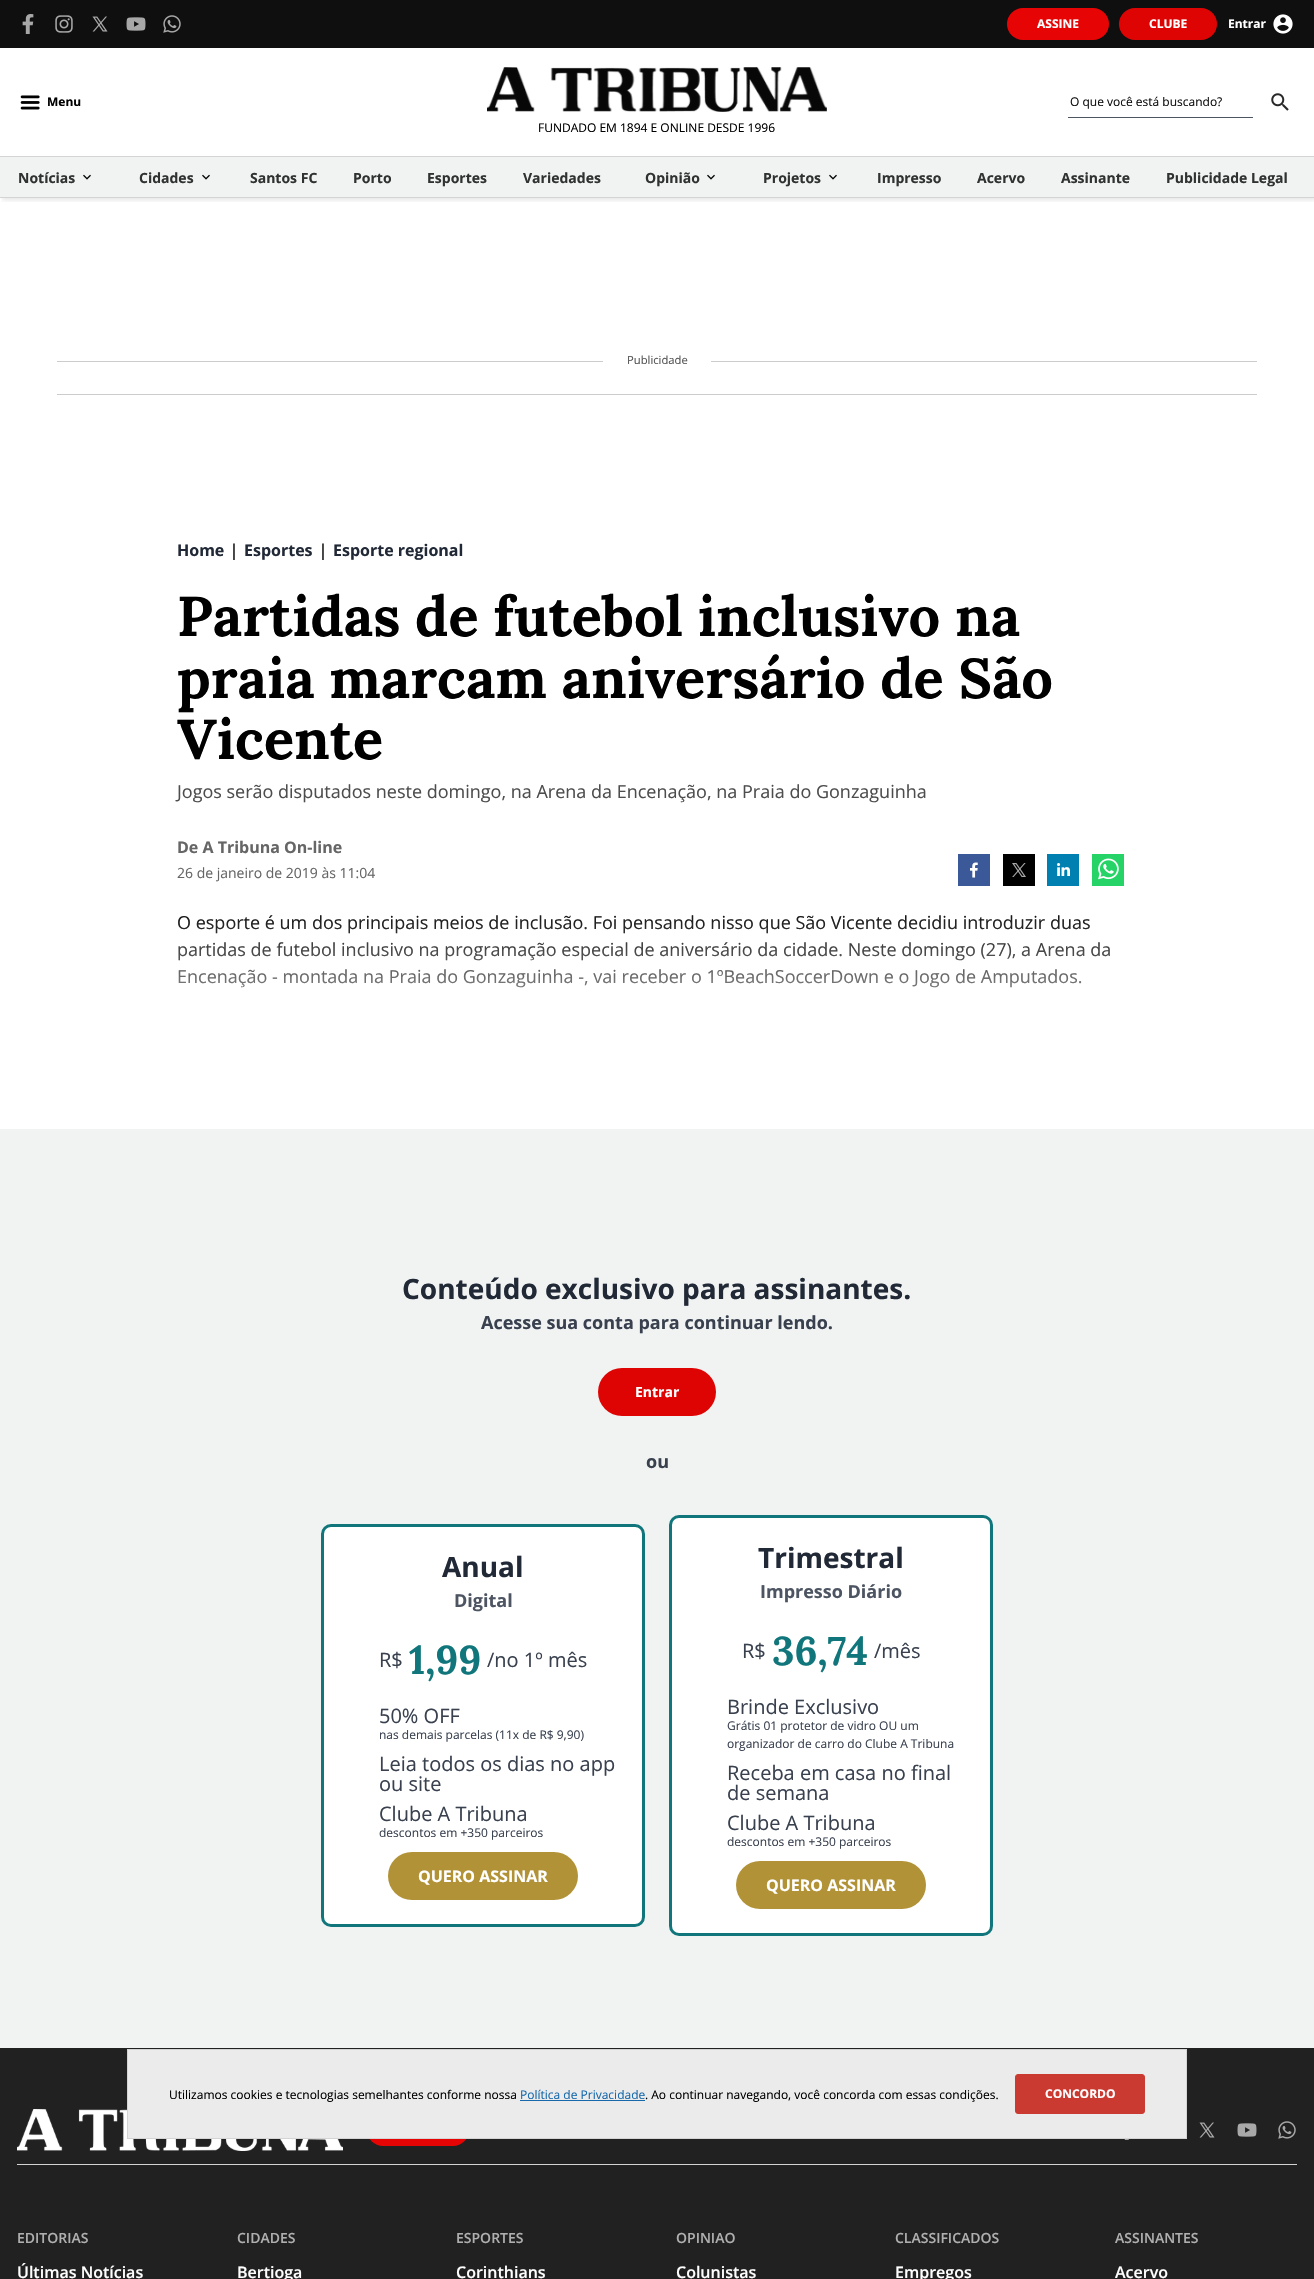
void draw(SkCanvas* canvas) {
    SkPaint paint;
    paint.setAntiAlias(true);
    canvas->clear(0xFFFFFFFF);
    canvas->save();
    canvas->clipRect(SkRect::MakeXYWH(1, 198, 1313, 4));
    paint.setColor(0x1A000000);
    paint.setMaskFilter(SkMaskFilter::MakeBlur(kNormal_SkBlurStyle, 2.5f));
    canvas->drawRect(SkRect::MakeXYWH(2, 2, 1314, 198), paint);
    paint.setMaskFilter(nullptr);
    canvas->restore();
    paint.setColor(0xFF0F0F0F);
    canvas->drawRect(SkRect::MakeXYWH(0, 0, 1314, 48), paint);
    canvas->drawImageRect(SkImages::DeferredFromEncodedData(SkData::MakeFromFileName("img1.png")), SkRect::MakeXYWH(22, 14, 12, 20), SkSamplingOptions());
    canvas->drawImageRect(SkImages::DeferredFromEncodedData(SkData::MakeFromFileName("img2.png")), SkRect::MakeXYWH(55, 15, 18, 18), SkSamplingOptions());
    canvas->drawImageRect(SkImages::DeferredFromEncodedData(SkData::MakeFromFileName("img3.png")), SkRect::MakeXYWH(92, 16, 16, 16), SkSamplingOptions());
    canvas->drawImageRect(SkImages::DeferredFromEncodedData(SkData::MakeFromFileName("img4.png")), SkRect::MakeXYWH(126, 17, 20, 14), SkSamplingOptions());
    canvas->drawImageRect(SkImages::DeferredFromEncodedData(SkData::MakeFromFileName("img5.png")), SkRect::MakeXYWH(163, 15, 18, 18), SkSamplingOptions());
    paint.setColor(0xFFE60404);
    canvas->drawRoundRect(SkRect::MakeXYWH(1007, 8, 102, 32), 16, 16, paint);
    SkFont font1(fontMgr->matchFamilyStyle("Open Sans", SkFontStyle::Bold()), 12);
    font1.setSubpixel(true);
    paint.setColor(0xFFFFFFFF);
    canvas->drawString("ASSINE", 1037, 28, font1, paint);
    paint.setColor(0xFFDE0404);
    canvas->drawRoundRect(SkRect::MakeXYWH(1119, 8, 98, 32), 16, 16, paint);
    paint.setColor(0xFFFFFFFF);
    canvas->drawString("CLUBE", 1149, 28, font1, paint);
    canvas->drawString("Entrar", 1228, 28, font1, paint);
    canvas->drawImageRect(SkImages::DeferredFromEncodedData(SkData::MakeFromFileName("img6.png")), SkRect::MakeXYWH(1273, 14, 20, 20), SkSamplingOptions());
    canvas->drawImageRect(SkImages::DeferredFromEncodedData(SkData::MakeFromFileName("img7.png")), SkRect::MakeXYWH(20, 95, 20, 15), SkSamplingOptions());
    paint.setColor(0xFF000000);
    canvas->drawString("Menu", 47, 106, font1, paint);
    paint.setColor(0xFF4D5562);
    canvas->drawRect(SkRect::MakeXYWH(1068, 117, 185, 1), paint);
    SkFont font2(fontMgr->matchFamilyStyle("Open Sans", SkFontStyle::Normal()), 12);
    font2.setSubpixel(true);
    paint.setColor(0xFF0F0F0F);
    canvas->drawString("O que você está buscando?", 1070, 106, font2, paint);
    canvas->drawImageRect(SkImages::DeferredFromEncodedData(SkData::MakeFromFileName("img8.png")), SkRect::MakeXYWH(1271, 93, 18, 18), SkSamplingOptions());
    canvas->drawImageRect(SkImages::DeferredFromEncodedData(SkData::MakeFromFileName("img9.png")), SkRect::MakeXYWH(487, 67, 340, 45), SkSamplingOptions());
    paint.setColor(0xFF000000);
    canvas->drawString("FUNDADO EM 1894 E ONLINE DESDE 1996", 538, 132, font2, paint);
    paint.setColor(0xFFF1F3F3);
    canvas->drawRect(SkRect::MakeXYWH(0, 157, 1314, 40), paint);
    paint.setColor(0xFFD4D4D4);
    canvas->drawRect(SkRect::MakeXYWH(0, 156, 1314, 1), paint);
    canvas->drawRect(SkRect::MakeXYWH(0, 197, 1314, 1), paint);
    SkFont font3(fontMgr->matchFamilyStyle("Open Sans", SkFontStyle::Bold()), 14);
    font3.setSubpixel(true);
    paint.setColor(0xFF303131);
    canvas->drawString("Notícias", 18, 183, font3, paint);
    canvas->drawImageRect(SkImages::DeferredFromEncodedData(SkData::MakeFromFileName("img10.png")), SkRect::MakeXYWH(83, 174, 8, 6), SkSamplingOptions());
    canvas->drawString("Cidades", 139, 183, font3, paint);
    canvas->drawImageRect(SkImages::DeferredFromEncodedData(SkData::MakeFromFileName("img10.png")), SkRect::MakeXYWH(202, 174, 8, 6), SkSamplingOptions());
    canvas->drawString("Santos FC", 250, 183, font3, paint);
    canvas->drawString("Porto", 353, 183, font3, paint);
    canvas->drawString("Esportes", 427, 183, font3, paint);
    canvas->drawString("Variedades", 523, 183, font3, paint);
    canvas->drawString("Opinião", 645, 183, font3, paint);
    canvas->drawImageRect(SkImages::DeferredFromEncodedData(SkData::MakeFromFileName("img10.png")), SkRect::MakeXYWH(707, 174, 8, 6), SkSamplingOptions());
    canvas->drawString("Projetos", 763, 183, font3, paint);
    canvas->drawImageRect(SkImages::DeferredFromEncodedData(SkData::MakeFromFileName("img10.png")), SkRect::MakeXYWH(829, 174, 8, 6), SkSamplingOptions());
    canvas->drawString("Impresso", 877, 183, font3, paint);
    canvas->drawString("Acervo", 977, 183, font3, paint);
    canvas->drawString("Assinante", 1061, 183, font3, paint);
    canvas->drawString("Publicidade Legal", 1166, 183, font3, paint);
    paint.setColor(0xFFCCCCCC);
    canvas->drawRect(SkRect::MakeXYWH(57, 361, 1200, 1), paint);
    canvas->drawRect(SkRect::MakeXYWH(57, 394, 1200, 1), paint);
    paint.setColor(0xFFFFFFFF);
    canvas->drawRect(SkRect::MakeXYWH(603, 361, 108, 1), paint);
    SkFont font4(fontMgr->matchFamilyStyle("Open Sans", SkFontStyle::Normal()), 11.25f);
    font4.setSubpixel(true);
    paint.setColor(0xFF555555);
    canvas->drawString("Publicidade", 627, 364, font4, paint);
    SkFont font5(fontMgr->matchFamilyStyle("Open Sans", SkFontStyle::Bold()), 16);
    font5.setSubpixel(true);
    paint.setColor(0xFF212936);
    canvas->drawString("Home", 177, 556, font5, paint);
    SkFont font6(fontMgr->matchFamilyStyle("Liberation Serif", SkFontStyle::Bold()), 18);
    font6.setSubpixel(true);
    paint.setColor(0xFF000000);
    canvas->drawString("|", 232, 556, font6, paint);
    paint.setColor(0xFF212936);
    canvas->drawString("Esportes", 244, 556, font5, paint);
    paint.setColor(0xFF000000);
    canvas->drawString("|", 321, 556, font6, paint);
    paint.setColor(0xFF212936);
    canvas->drawString("Esporte regional", 333, 556, font5, paint);
    SkFont font7(fontMgr->matchFamilyStyle("Lora", SkFontStyle::Bold()), 56);
    font7.setSubpixel(true);
    paint.setColor(0xFF000000);
    canvas->drawString("Partidas de futebol inclusivo na", 177, 636, font7, paint);
    canvas->drawString("praia marcam aniversário de São", 177, 698, font7, paint);
    canvas->drawString("Vicente", 177, 759, font7, paint);
    SkFont font8(fontMgr->matchFamilyStyle("Open Sans", SkFontStyle::Normal()), 18);
    font8.setSubpixel(true);
    paint.setColor(0xFF4D4D4D);
    canvas->drawString("Jogos serão disputados neste domingo, na Arena da Encenação, na Praia do Gonzaguinha", 177, 798, font8, paint);
    paint.setColor(0xFF666666);
    canvas->drawString("De A Tribuna On-line", 177, 853, font5, paint);
    SkFont font9(fontMgr->matchFamilyStyle("Open Sans", SkFontStyle::Normal()), 14);
    font9.setSubpixel(true);
    canvas->drawString("26 de janeiro de 2019 às 11:04", 177, 878, font9, paint);
    canvas->drawImageRect(SkImages::DeferredFromEncodedData(SkData::MakeFromFileName("img11.png")), SkRect::MakeXYWH(958, 854, 32, 32), SkSamplingOptions());
    canvas->drawImageRect(SkImages::DeferredFromEncodedData(SkData::MakeFromFileName("img12.png")), SkRect::MakeXYWH(1003, 854, 32, 32), SkSamplingOptions());
    canvas->drawImageRect(SkImages::DeferredFromEncodedData(SkData::MakeFromFileName("img13.png")), SkRect::MakeXYWH(1047, 854, 32, 32), SkSamplingOptions());
    canvas->drawImageRect(SkImages::DeferredFromEncodedData(SkData::MakeFromFileName("img14.png")), SkRect::MakeXYWH(1092, 854, 32, 32), SkSamplingOptions());
    paint.setColor(0xFF000000);
    canvas->drawString("O esporte é um dos principais meios de inclusão. Foi pensando nisso que São Vicente decidiu introduzir duas", 177, 929, font8, paint);
    canvas->drawString("partidas de futebol inclusivo na programação especial de aniversário da cidade. Neste domingo (27), a Arena da", 177, 956, font8, paint);
    canvas->drawString("Encenação - montada na Praia do Gonzaguinha -, vai receber o 1ºBeachSoccerDown e o Jogo de Amputados.", 177, 983, font8, paint);
    {
        const SkColor colors[] = {0x00FFFFFF, 0xFFFFFFFF};
        const float stops[] = {0, 0.8f};
        const SkPoint ends[] = {{657, 899}, {657, 1129}};
        paint.setShader(SkGradientShader::MakeLinear(ends, colors, stops, 2, SkTileMode::kClamp));
        paint.setAlpha(255);
    }
    canvas->drawRect(SkRect::MakeXYWH(178, 915, 932, 73), paint);
    paint.setShader(nullptr);
    paint.setColor(0xFFF1F3F3);
    canvas->drawRect(SkRect::MakeXYWH(0, 1129, 1314, 919), paint);
    SkFont font10(fontMgr->matchFamilyStyle("Open Sans", SkFontStyle::Bold()), 28);
    font10.setSubpixel(true);
    paint.setColor(0xFF212936);
    canvas->drawString("Conteúdo exclusivo para assinantes.", 402, 1299, font10, paint);
    SkFont font11(fontMgr->matchFamilyStyle("Open Sans", SkFontStyle::Bold()), 18);
    font11.setSubpixel(true);
    paint.setColor(0xFF39414F);
    canvas->drawString("Acesse sua conta para continuar lendo.", 481, 1329, font11, paint);
    paint.setColor(0xFFDE0404);
    canvas->drawRoundRect(SkRect::MakeXYWH(598, 1368, 118, 48), 24, 24, paint);
    paint.setColor(0xFFFFFFFF);
    canvas->drawString("Entrar", 635, 1397, font3, paint);
    paint.setColor(0xFF39414F);
    canvas->drawString("ou", 646, 1468, font11, paint);
    paint.setColor(0xFFFFFFFF);
    canvas->drawRoundRect(SkRect::MakeXYWH(322.5f, 1525.5f, 321, 400), 8.5f, 8.5f, paint);
    paint.setStyle(SkPaint::kStroke_Style);
    paint.setStrokeWidth(3);
    paint.setColor(0xFF10767B);
    canvas->drawRoundRect(SkRect::MakeXYWH(322.5f, 1525.5f, 321, 400), 8.5f, 8.5f, paint);
    paint.setStyle(SkPaint::kFill_Style);
    paint.setColor(0xFF212936);
    canvas->drawString("Anual", 442, 1577, font10, paint);
    paint.setColor(0xFF4D5562);
    canvas->drawString("Digital", 454, 1607, font11, paint);
    SkFont font12(fontMgr->matchFamilyStyle("Open Sans", SkFontStyle::Normal()), 20);
    font12.setSubpixel(true);
    paint.setColor(0xFF39414F);
    canvas->drawString("R$", 379, 1667, font12, paint);
    SkFont font13(fontMgr->matchFamilyStyle("Lora", SkFontStyle::Bold()), 40);
    font13.setSubpixel(true);
    paint.setColor(0xFF10767B);
    canvas->drawString("1,99", 409, 1674, font13, paint);
    paint.setColor(0xFF39414F);
    canvas->drawString("/no 1º mês", 487, 1667, font12, paint);
    canvas->drawString("50% OFF", 379, 1723, font12, paint);
    canvas->drawString("nas demais parcelas (11x de R$ 9,90)", 379, 1739, font2, paint);
    canvas->drawString("Leia todos os dias no app", 379, 1771, font12, paint);
    canvas->drawString("ou site", 379, 1791, font12, paint);
    canvas->drawString("Clube A Tribuna", 379, 1821, font12, paint);
    canvas->drawString("descontos em +350 parceiros", 379, 1837, font2, paint);
    paint.setColor(0xFFB29237);
    canvas->drawRoundRect(SkRect::MakeXYWH(388, 1852, 190, 48), 24, 24, paint);
    paint.setColor(0xFFFFFFFF);
    canvas->drawString("QUERO ASSINAR", 418, 1882, font5, paint);
    canvas->drawRoundRect(SkRect::MakeXYWH(670.5f, 1516.5f, 321, 418), 8.5f, 8.5f, paint);
    paint.setStyle(SkPaint::kStroke_Style);
    paint.setColor(0xFF10767B);
    canvas->drawRoundRect(SkRect::MakeXYWH(670.5f, 1516.5f, 321, 418), 8.5f, 8.5f, paint);
    paint.setStyle(SkPaint::kFill_Style);
    paint.setColor(0xFF212936);
    canvas->drawString("Trimestral", 758, 1568, font10, paint);
    paint.setColor(0xFF4D5562);
    canvas->drawString("Impresso Diário", 760, 1598, font11, paint);
    paint.setColor(0xFF39414F);
    canvas->drawString("R$", 742, 1658, font12, paint);
    paint.setColor(0xFF10767B);
    canvas->drawString("36,74", 772, 1665, font13, paint);
    paint.setColor(0xFF39414F);
    canvas->drawString("/mês", 874, 1658, font12, paint);
    canvas->drawString("Brinde Exclusivo", 727, 1714, font12, paint);
    canvas->drawString("Grátis 01 protetor de vidro OU um", 727, 1730, font2, paint);
    canvas->drawString("organizador de carro do Clube A Tribuna", 727, 1748, font2, paint);
    canvas->drawString("Receba em casa no final", 727, 1780, font12, paint);
    canvas->drawString("de semana", 727, 1800, font12, paint);
    canvas->drawString("Clube A Tribuna", 727, 1830, font12, paint);
    canvas->drawString("descontos em +350 parceiros", 727, 1846, font2, paint);
    paint.setColor(0xFFB29237);
    canvas->drawRoundRect(SkRect::MakeXYWH(736, 1861, 190, 48), 24, 24, paint);
    paint.setColor(0xFFFFFFFF);
    canvas->drawString("QUERO ASSINAR", 766, 1891, font5, paint);
    paint.setColor(0xFF212121);
    canvas->drawRect(SkRect::MakeXYWH(0, 2048, 1314, 231), paint);
    canvas->drawImageRect(SkImages::DeferredFromEncodedData(SkData::MakeFromFileName("img15.png")), SkRect::MakeXYWH(17, 2109, 326, 42), SkSamplingOptions());
    paint.setColor(0xFFE60404);
    canvas->drawRoundRect(SkRect::MakeXYWH(367, 2114, 102, 32), 16, 16, paint);
    paint.setColor(0xFFEBEBEB);
    canvas->drawRect(SkRect::MakeXYWH(127.5f, 2049.5f, 1059, 89), paint);
    paint.setStyle(SkPaint::kStroke_Style);
    paint.setStrokeWidth(1);
    paint.setColor(0xFFD4D4D4);
    canvas->drawRect(SkRect::MakeXYWH(127.5f, 2049.5f, 1059, 89), paint);
    paint.setStyle(SkPaint::kFill_Style);
    paint.setColor(0xFF000000);
    canvas->drawString("Utilizamos cookies e tecnologias semelhantes conforme nossa", 169, 2099, font2, paint);
    paint.setColor(0xFF1769AC);
    canvas->drawString("Política de Privacidade", 520, 2099, font2, paint);
    canvas->drawRect(SkRect::MakeXYWH(520, 2100, 125, 1), paint);
    paint.setColor(0xFF000000);
    canvas->drawString(". Ao continuar navegando, você concorda com essas condições.", 645, 2099, font2, paint);
    paint.setColor(0xFFCB3A31);
    canvas->drawRoundRect(SkRect::MakeXYWH(1015.5f, 2074.5f, 129, 39), 2.5f, 2.5f, paint);
    paint.setStyle(SkPaint::kStroke_Style);
    canvas->drawRoundRect(SkRect::MakeXYWH(1015.5f, 2074.5f, 129, 39), 2.5f, 2.5f, paint);
    paint.setStyle(SkPaint::kFill_Style);
    paint.setColor(0xFFFFFFFF);
    canvas->drawString("CONCORDO", 1045, 2098, font1, paint);
    paint.setColor(0xFFD3D3D3);
    canvas->drawRect(SkRect::MakeXYWH(17, 2164, 1280, 1), paint);
    canvas->drawImageRect(SkImages::DeferredFromEncodedData(SkData::MakeFromFileName("img16.png")), SkRect::MakeXYWH(1199, 2122, 16, 16), SkSamplingOptions());
    canvas->drawImageRect(SkImages::DeferredFromEncodedData(SkData::MakeFromFileName("img17.png")), SkRect::MakeXYWH(1237, 2123, 20, 14), SkSamplingOptions());
    canvas->drawImageRect(SkImages::DeferredFromEncodedData(SkData::MakeFromFileName("img18.png")), SkRect::MakeXYWH(1278, 2121, 18, 18), SkSamplingOptions());
    canvas->drawImageRect(SkImages::DeferredFromEncodedData(SkData::MakeFromFileName("img19.png")), SkRect::MakeXYWH(1124, 2139, 5, 1), SkSamplingOptions());
    SkFont font14(fontMgr->matchFamilyStyle("Open Sans", SkFontStyle(600, SkFontStyle::kNormal_Width, SkFontStyle::kUpright_Slant)), 14);
    font14.setSubpixel(true);
    paint.setColor(0xFFAFAFAF);
    canvas->drawString("EDITORIAS", 17, 2243, font14, paint);
    SkFont font15(fontMgr->matchFamilyStyle("Open Sans", SkFontStyle(600, SkFontStyle::kNormal_Width, SkFontStyle::kUpright_Slant)), 16);
    font15.setSubpixel(true);
    paint.setColor(0xFFFFFFFF);
    canvas->drawString("Últimas Notícias", 17, 2278, font15, paint);
    paint.setColor(0xFFAFAFAF);
    canvas->drawString("CIDADES", 237, 2243, font14, paint);
    paint.setColor(0xFFFFFFFF);
    canvas->drawString("Bertioga", 237, 2278, font15, paint);
    paint.setColor(0xFFAFAFAF);
    canvas->drawString("ESPORTES", 456, 2243, font14, paint);
    paint.setColor(0xFFFFFFFF);
    canvas->drawString("Corinthians", 456, 2278, font15, paint);
    paint.setColor(0xFFAFAFAF);
    canvas->drawString("OPINIAO", 676, 2243, font14, paint);
    paint.setColor(0xFFFFFFFF);
    canvas->drawString("Colunistas", 676, 2278, font15, paint);
    paint.setColor(0xFFAFAFAF);
    canvas->drawString("CLASSIFICADOS", 895, 2243, font14, paint);
    paint.setColor(0xFFFFFFFF);
    canvas->drawString("Empregos", 895, 2278, font15, paint);
    paint.setColor(0xFFAFAFAF);
    canvas->drawString("ASSINANTES", 1115, 2243, font14, paint);
    paint.setColor(0xFFFFFFFF);
    canvas->drawString("Acervo", 1115, 2278, font15, paint);
}
